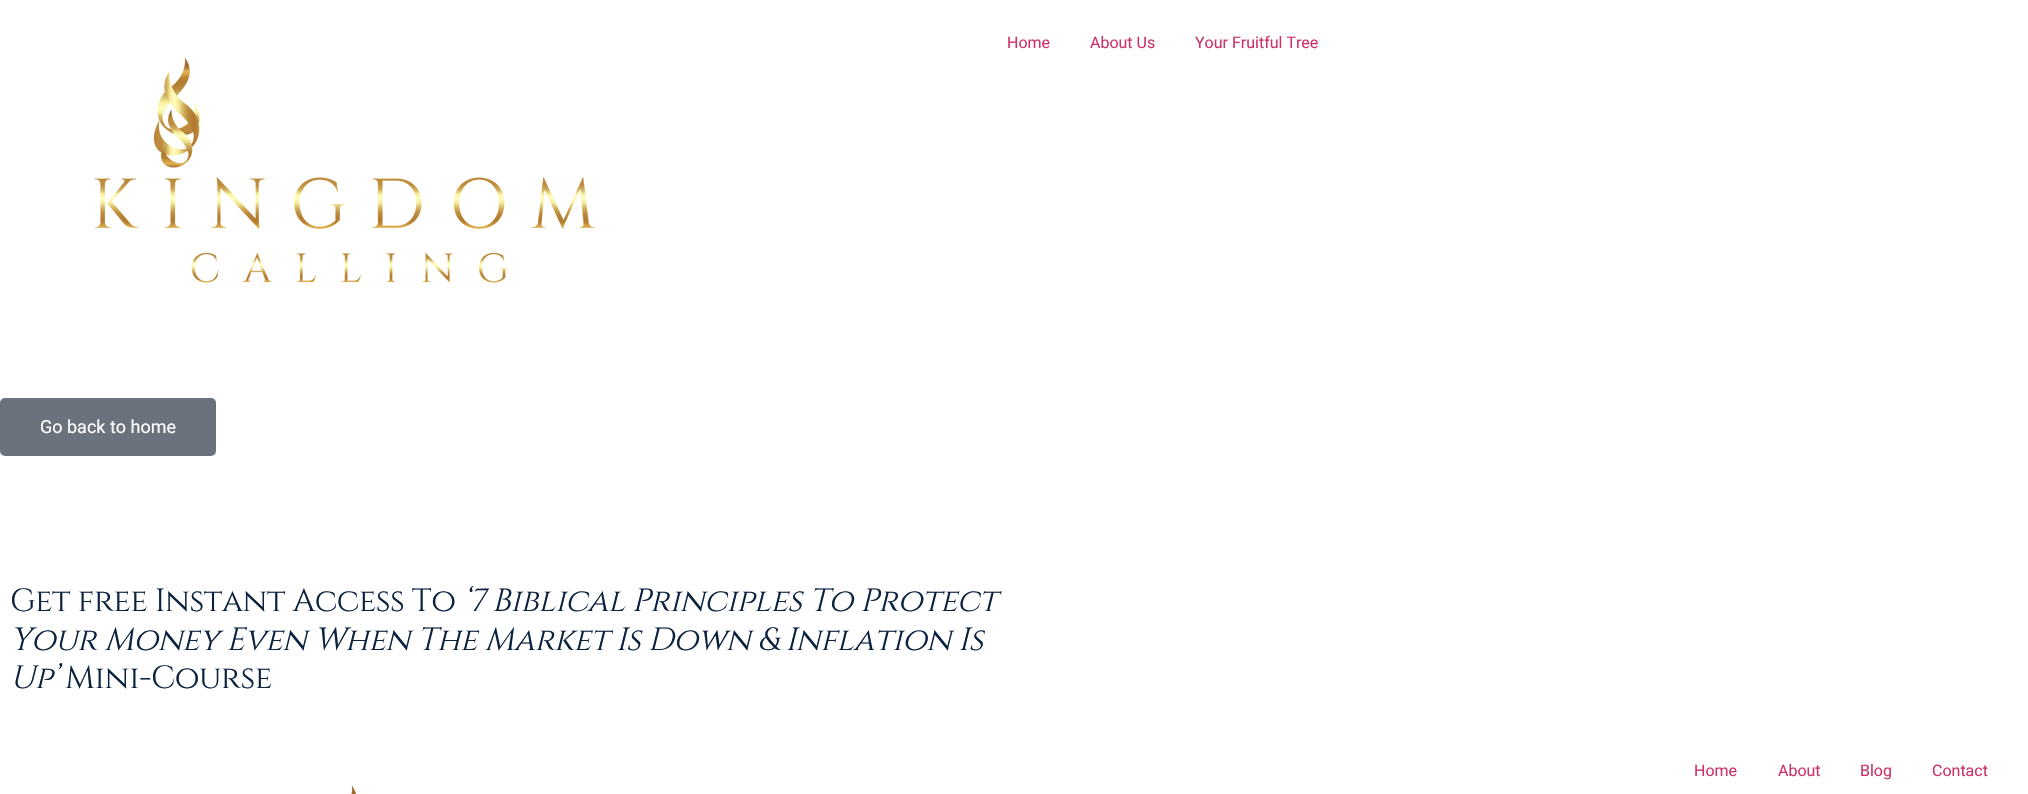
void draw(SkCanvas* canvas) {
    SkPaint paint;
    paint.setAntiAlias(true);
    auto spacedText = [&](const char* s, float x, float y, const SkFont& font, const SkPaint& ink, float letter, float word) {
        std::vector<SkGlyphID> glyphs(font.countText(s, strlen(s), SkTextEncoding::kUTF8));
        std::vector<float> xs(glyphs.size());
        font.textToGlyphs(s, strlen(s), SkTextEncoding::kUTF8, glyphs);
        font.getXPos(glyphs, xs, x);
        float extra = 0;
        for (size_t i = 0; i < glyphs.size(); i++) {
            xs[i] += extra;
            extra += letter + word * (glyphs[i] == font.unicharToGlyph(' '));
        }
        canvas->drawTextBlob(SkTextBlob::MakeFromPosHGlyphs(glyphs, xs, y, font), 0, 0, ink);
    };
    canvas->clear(0xFFFFFFFF);
    SkFont font1(fontMgr->matchFamilyStyle("Roboto", SkFontStyle::Normal()), 16);
    font1.setSubpixel(true);
    paint.setColor(0xFFCC3366);
    canvas->drawString("Home", 1007, 48, font1, paint);
    canvas->drawString("About Us", 1090, 48, font1, paint);
    canvas->drawString("Your Fruitful Tree", 1195, 48, font1, paint);
    canvas->drawImageRect(SkImages::DeferredFromEncodedData(SkData::MakeFromFileName("img1.png")), SkRect::MakeXYWH(95, 57, 500, 226), SkSamplingOptions());
    paint.setColor(0xFF69727D);
    canvas->drawRoundRect(SkRect::MakeXYWH(0, 398, 216, 58), 5, 5, paint);
    SkFont font2(fontMgr->matchFamilyStyle("Roboto", SkFontStyle::Normal()), 18);
    font2.setSubpixel(true);
    paint.setColor(0xFFFFFFFF);
    canvas->drawString("Go back to home", 40, 433, font2, paint);
    SkFont font3(fontMgr->matchFamilyStyle("Cinzel", SkFontStyle::Normal()), 32);
    font3.setSubpixel(true);
    paint.setColor(0xFF0B223F);
    spacedText("Get free Instant Access To", 10, 611, font3, paint, -0.5f, 0);
    SkFont font4(fontMgr->matchFamilyStyle("Cinzel", SkFontStyle::Italic()), 32);
    font4.setSubpixel(true);
    spacedText("‘7 Biblical Principles To Protect", 463, 611, font4, paint, -0.5f, 0);
    spacedText("Your Money Even When The Market Is Down & Inflation Is", 10, 650, font4, paint, -0.5f, 0);
    spacedText("Up’", 10, 688, font4, paint, -0.5f, 0);
    spacedText("Mini-Course", 65, 688, font3, paint, -0.5f, 0);
    paint.setColor(0xFFCC3366);
    canvas->drawString("Home", 1694, 776, font1, paint);
    canvas->drawString("About", 1778, 776, font1, paint);
    canvas->drawString("Blog", 1860, 776, font1, paint);
    canvas->drawString("Contact", 1932, 776, font1, paint);
    canvas->drawImageRect(SkImages::DeferredFromEncodedData(SkData::MakeFromFileName("img2.png")), SkRect::MakeXYWH(351, 785, 5, 9), SkSamplingOptions());
}
